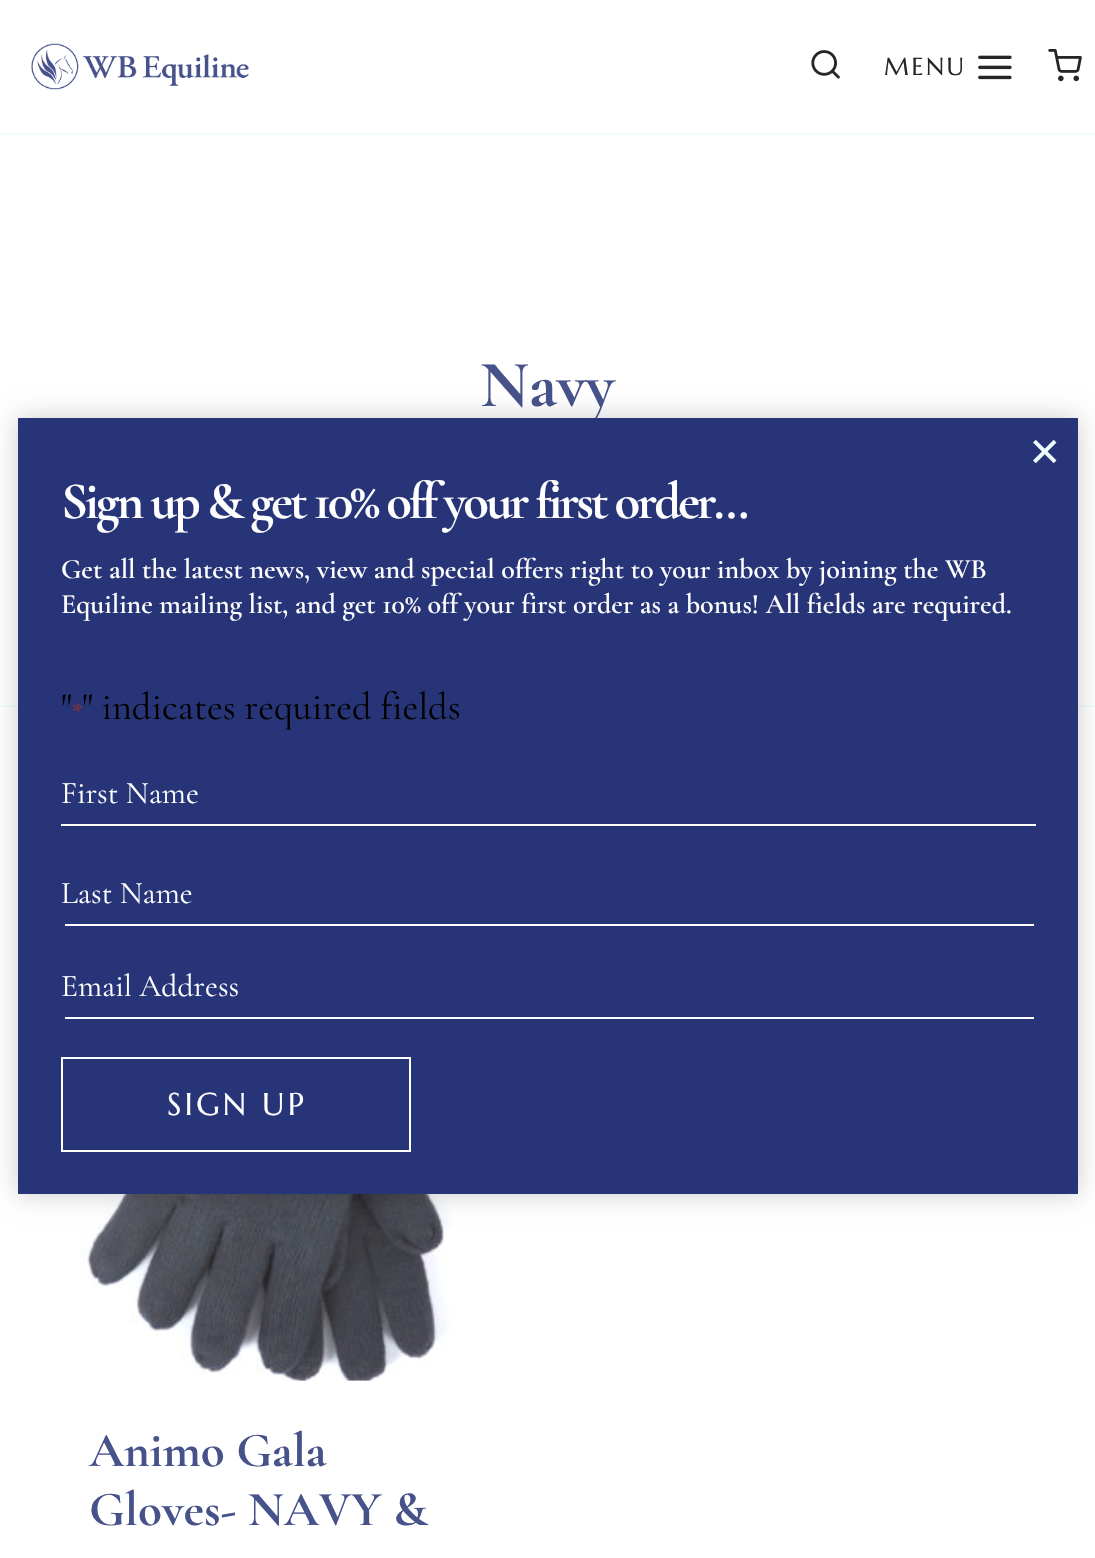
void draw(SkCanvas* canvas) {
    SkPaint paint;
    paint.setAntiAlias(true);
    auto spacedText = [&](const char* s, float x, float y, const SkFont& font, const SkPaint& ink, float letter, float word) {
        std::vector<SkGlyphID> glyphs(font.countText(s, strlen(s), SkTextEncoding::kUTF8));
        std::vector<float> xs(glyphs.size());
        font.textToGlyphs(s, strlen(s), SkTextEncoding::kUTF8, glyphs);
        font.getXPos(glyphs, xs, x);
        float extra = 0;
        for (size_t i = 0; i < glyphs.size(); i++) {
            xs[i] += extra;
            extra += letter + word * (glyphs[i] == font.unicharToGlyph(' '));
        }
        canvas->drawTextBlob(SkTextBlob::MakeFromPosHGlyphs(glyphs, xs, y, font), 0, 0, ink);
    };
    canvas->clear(0xFFFFFFFF);
    paint.setColor(0xFFF1FCFC);
    canvas->drawRect(SkRect::MakeXYWH(0, 133, 1095, 2), paint);
    canvas->drawImageRect(SkImages::DeferredFromEncodedData(SkData::MakeFromFileName("img1.png")), SkRect::MakeXYWH(31, 43, 218, 47), SkSamplingOptions());
    canvas->drawImageRect(SkImages::DeferredFromEncodedData(SkData::MakeFromFileName("img2.png")), SkRect::MakeXYWH(811, 50, 29, 29), SkSamplingOptions());
    SkFont font1(fontMgr->matchFamilyStyle("Marcellus", SkFontStyle::Normal()), 24.5f);
    font1.setSubpixel(true);
    paint.setColor(0xFF262626);
    spacedText("MENU", 884, 75, font1, paint, 2.5f, 0);
    canvas->drawImageRect(SkImages::DeferredFromEncodedData(SkData::MakeFromFileName("img3.png")), SkRect::MakeXYWH(978, 55, 34, 25), SkSamplingOptions());
    canvas->drawImageRect(SkImages::DeferredFromEncodedData(SkData::MakeFromFileName("img4.png")), SkRect::MakeXYWH(1048, 49, 34, 33), SkSamplingOptions());
    paint.setColor(0xFFF1FCFC);
    canvas->drawRect(SkRect::MakeXYWH(0, 705, 1095, 2), paint);
    SkFont font2(fontMgr->matchFamilyStyle("Cormorant Garamond", SkFontStyle::Bold()), 66.5f);
    font2.setSubpixel(true);
    paint.setColor(0xFF47528B);
    canvas->drawString("Navy", 480, 406, font2, paint);
    canvas->drawImageRect(SkImages::DeferredFromEncodedData(SkData::MakeFromFileName("img5.png")), SkRect::MakeXYWH(80, 1194, 372, 187), SkSamplingOptions());
    SkFont font3(fontMgr->matchFamilyStyle("Cormorant Garamond", SkFontStyle::Bold()), 49);
    font3.setSubpixel(true);
    canvas->drawString("Animo Gala", 89, 1466, font3, paint);
    canvas->drawString("Gloves- NAVY &", 89, 1525, font3, paint);
    paint.setColor(0x33000000);
    paint.setMaskFilter(SkMaskFilter::MakeBlur(kNormal_SkBlurStyle, 12));
    canvas->drawRect(SkRect::MakeXYWH(18, 418, 1060, 776), paint);
    paint.setMaskFilter(nullptr);
    paint.setColor(0xFF273477);
    canvas->drawRect(SkRect::MakeXYWH(18, 418, 1060, 776), paint);
    canvas->drawImageRect(SkImages::DeferredFromEncodedData(SkData::MakeFromFileName("img6.png")), SkRect::MakeXYWH(1033, 439, 24, 25), SkSamplingOptions());
    SkFont font4(fontMgr->matchFamilyStyle("Cormorant Garamond", SkFontStyle::Bold()), 52.5f);
    font4.setSubpixel(true);
    paint.setColor(0xFFFFFFFF);
    spacedText("Sign up & get 10% off your first order…", 61, 518, font4, paint, -3, -0.25f);
    SkFont font5(fontMgr->matchFamilyStyle("Cormorant Garamond", SkFontStyle(600, SkFontStyle::kNormal_Width, SkFontStyle::kUpright_Slant)), 28);
    font5.setSubpixel(true);
    canvas->drawString("Get all the latest news, view and special offers right to your inbox by joining the WB", 61, 578, font5, paint);
    spacedText("Equiline mailing list, and get 10% off your first order as a bonus! All fields are required.", 61, 613, font5, paint, 0, -0.1f);
    SkFont font6(fontMgr->matchFamilyStyle("Cormorant Garamond", SkFontStyle::Normal()), 38.5f);
    font6.setSubpixel(true);
    paint.setColor(0xFF000000);
    canvas->drawString("\"", 61, 719, font6, paint);
    spacedText("\" indicates required fields", 82, 719, font6, paint, 0, -0.5f);
    SkFont font7(fontMgr->matchFamilyStyle("Cormorant Garamond", SkFontStyle::Normal()), 23);
    font7.setSubpixel(true);
    paint.setColor(0xFFC02B0A);
    canvas->drawString("*", 72, 719, font7, paint);
    paint.setColor(0xFFFFFFFF);
    canvas->drawRect(SkRect::MakeXYWH(61, 824, 975, 2), paint);
    SkFont font8(fontMgr->matchFamilyStyle("Cormorant Garamond", SkFontStyle::Normal()), 31.5f);
    font8.setSubpixel(true);
    canvas->drawString("First Name", 61, 803, font8, paint);
    canvas->drawRect(SkRect::MakeXYWH(65, 924, 969, 2), paint);
    canvas->drawString("Last Name", 61, 903, font8, paint);
    canvas->drawRect(SkRect::MakeXYWH(65, 1017, 969, 2), paint);
    canvas->drawString("Email Address", 61, 996, font8, paint);
    paint.setStyle(SkPaint::kStroke_Style);
    paint.setStrokeWidth(2);
    canvas->drawRect(SkRect::MakeXYWH(62, 1058, 348, 93), paint);
    SkFont font9(fontMgr->matchFamilyStyle("Marcellus", SkFontStyle::Normal()), 31.5f);
    font9.setSubpixel(true);
    paint.setStyle(SkPaint::kFill_Style);
    spacedText("SIGN UP", 167, 1115, font9, paint, 3.25f, 0);
}
